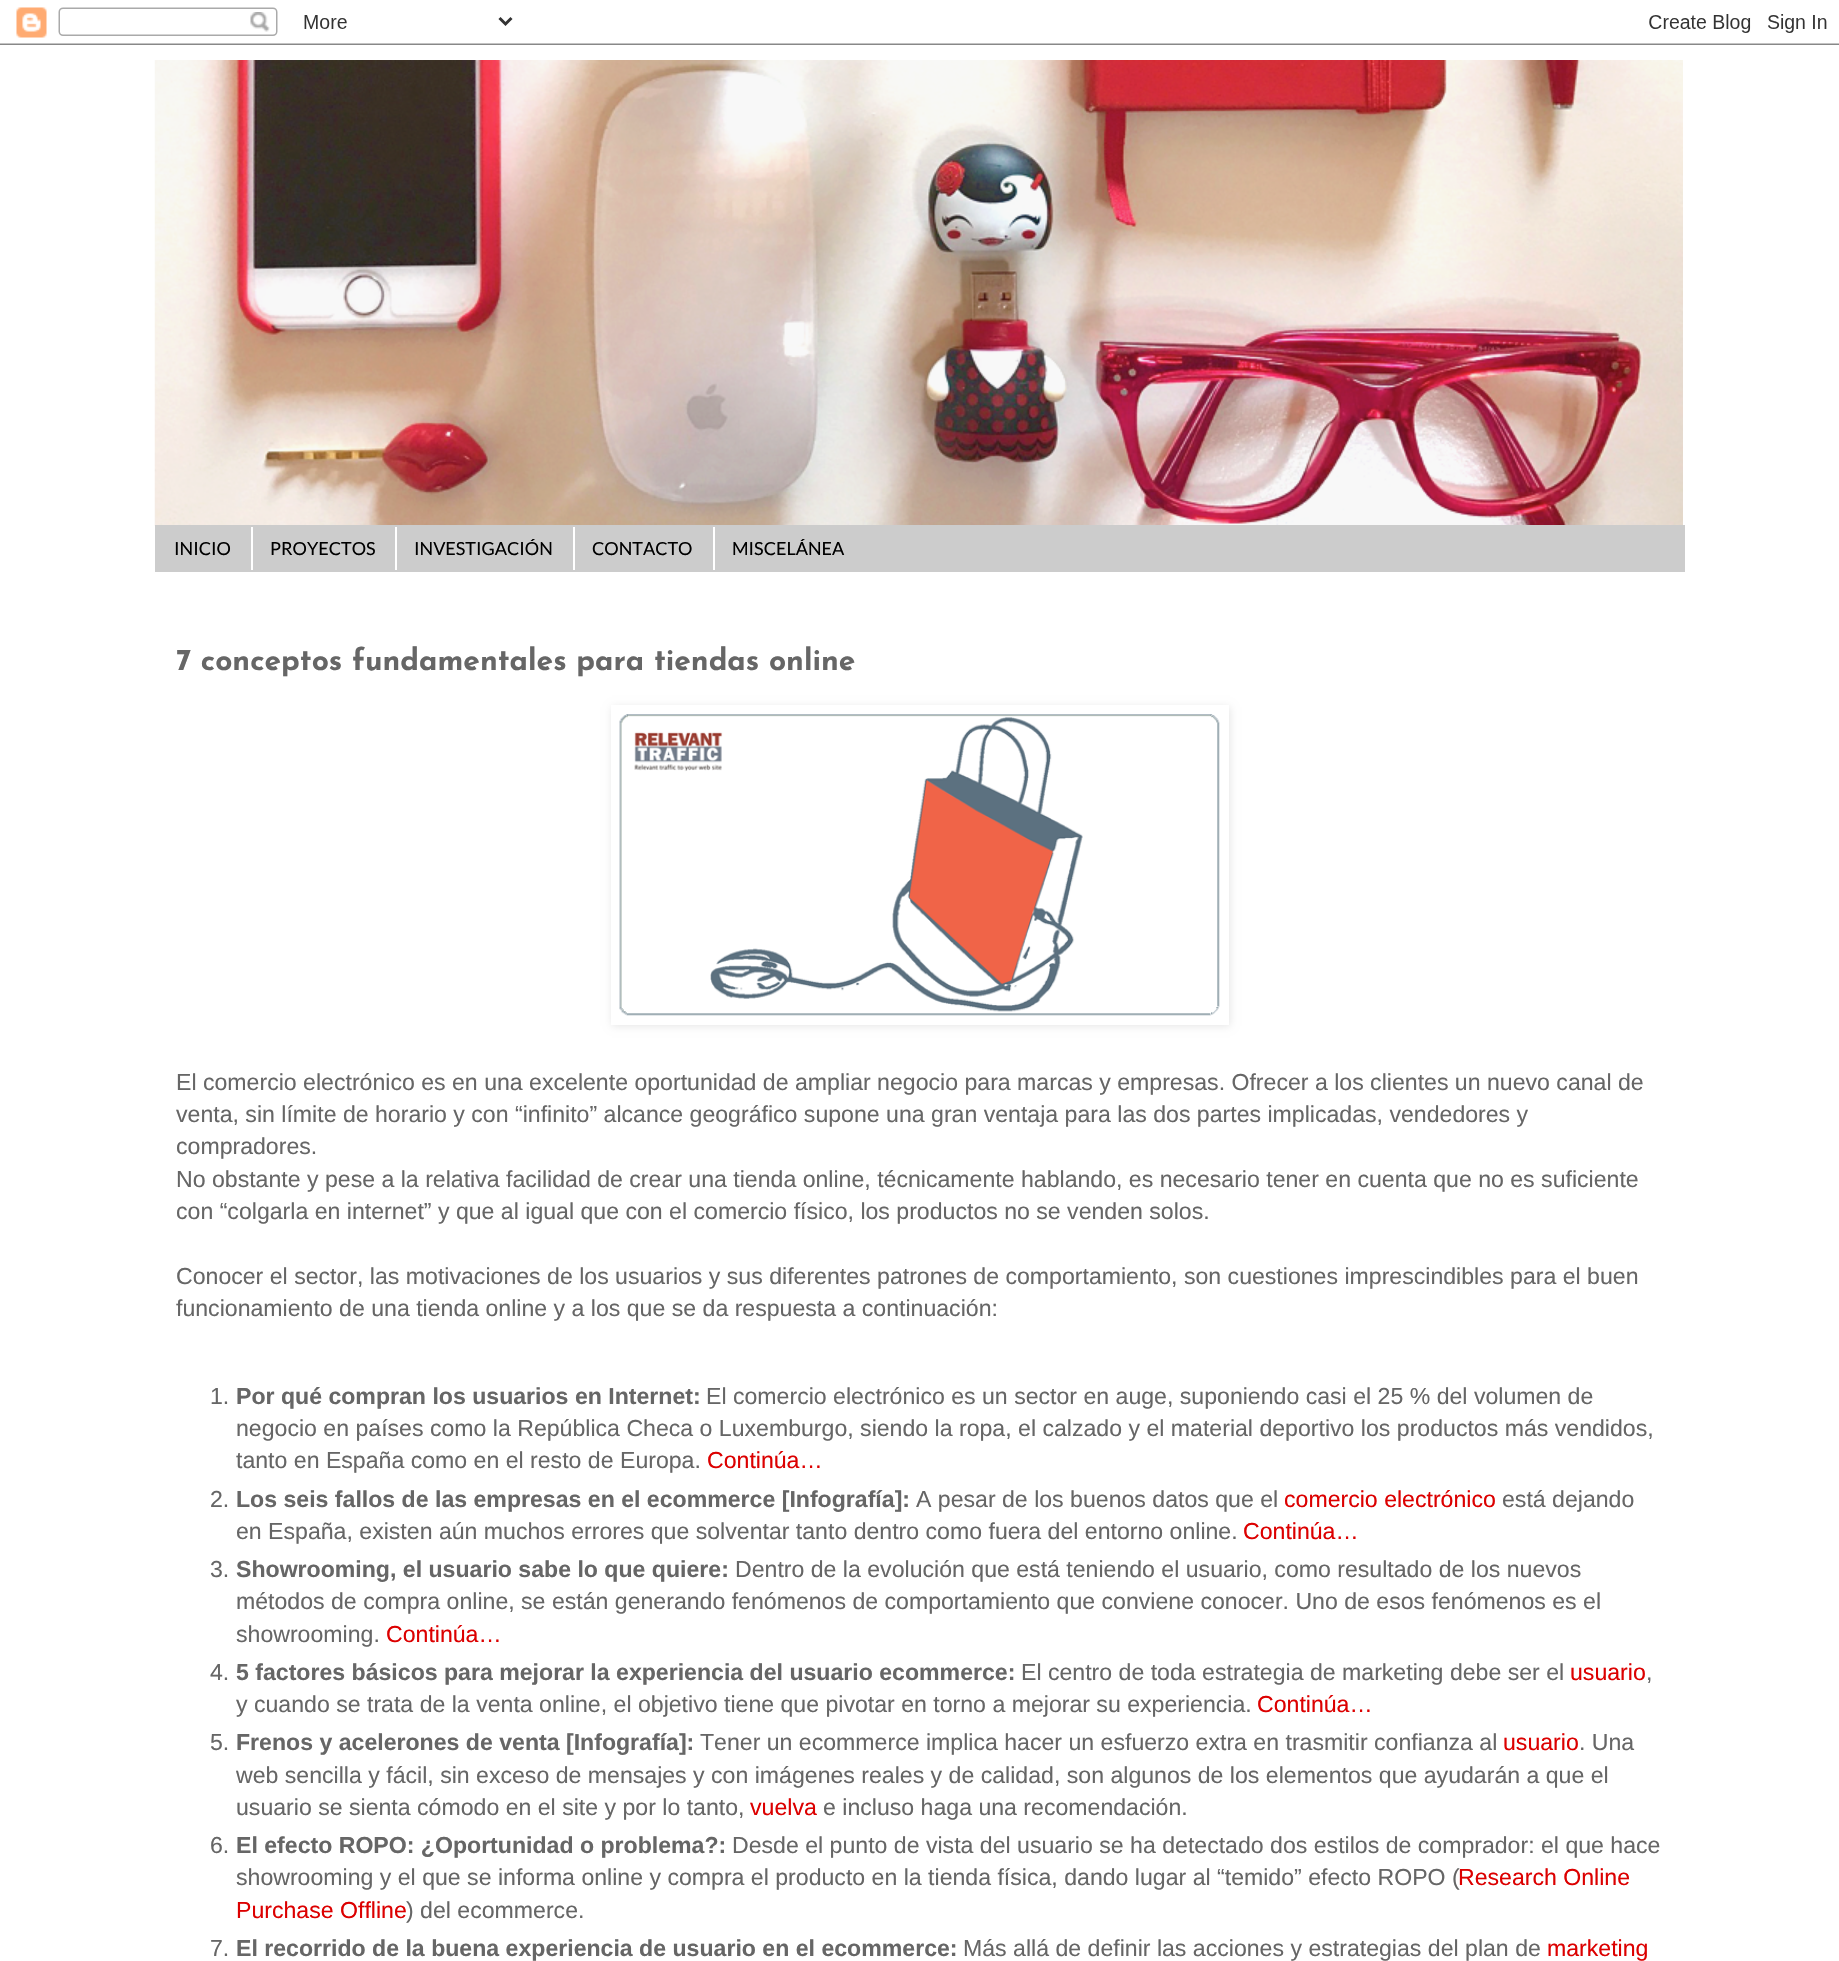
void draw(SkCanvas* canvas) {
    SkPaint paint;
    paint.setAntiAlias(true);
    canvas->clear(0xFFFFFFFF);
    canvas->drawImageRect(SkImages::DeferredFromEncodedData(SkData::MakeFromFileName("img1.png")), SkRect::MakeXYWH(0, 7, 1839, 38), SkSamplingOptions());
    canvas->drawImageRect(SkImages::DeferredFromEncodedData(SkData::MakeFromFileName("img2.png")), SkRect::MakeXYWH(154, 60, 1529, 467), SkSamplingOptions());
    paint.setColor(0xFFCCCCCC);
    canvas->drawRect(SkRect::MakeXYWH(155, 525, 1530, 47), paint);
    SkFont font1(fontMgr->matchFamilyStyle("Lato", SkFontStyle::Normal()), 18);
    font1.setSubpixel(true);
    paint.setColor(0xFF000000);
    canvas->drawString("INICIO", 174, 555, font1, paint);
    paint.setColor(0xFFFFFFFF);
    canvas->drawRect(SkRect::MakeXYWH(251, 527, 2, 43), paint);
    paint.setColor(0xFF000000);
    canvas->drawString("PROYECTOS", 270, 555, font1, paint);
    paint.setColor(0xFFFFFFFF);
    canvas->drawRect(SkRect::MakeXYWH(395, 527, 2, 43), paint);
    paint.setColor(0xFF000000);
    canvas->drawString("INVESTIGACIÓN", 414, 555, font1, paint);
    paint.setColor(0xFFFFFFFF);
    canvas->drawRect(SkRect::MakeXYWH(573, 527, 2, 43), paint);
    paint.setColor(0xFF000000);
    canvas->drawString("CONTACTO", 592, 555, font1, paint);
    paint.setColor(0xFFFFFFFF);
    canvas->drawRect(SkRect::MakeXYWH(713, 527, 2, 43), paint);
    paint.setColor(0xFF000000);
    canvas->drawString("MISCELÁNEA", 732, 555, font1, paint);
    SkFont font2(fontMgr->matchFamilyStyle("Josefin Sans", SkFontStyle(100, SkFontStyle::kNormal_Width, SkFontStyle::kUpright_Slant)), 30);
    font2.setSubpixel(true);
    paint.setColor(0xFF666666);
    canvas->drawString("7 conceptos fundamentales para tiendas online", 176, 670, font2, paint);
    canvas->save();
    canvas->clipPath(SkPathBuilder(SkPathFillType::kEvenOdd).moveTo(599, 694).lineTo(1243, 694).lineTo(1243, 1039).lineTo(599, 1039).close().moveTo(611, 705).lineTo(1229, 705).lineTo(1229, 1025).lineTo(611, 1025).close().detach(), true);
    paint.setColor(0x1A000000);
    paint.setMaskFilter(SkMaskFilter::MakeBlur(kNormal_SkBlurStyle, 4));
    canvas->drawRect(SkRect::MakeXYWH(612, 707, 618, 319), paint);
    paint.setMaskFilter(nullptr);
    canvas->restore();
    canvas->drawImageRect(SkImages::DeferredFromEncodedData(SkData::MakeFromFileName("img3.png")), SkRect::MakeXYWH(619, 714, 601, 302), SkSamplingOptions());
    SkFont font3(fontMgr->matchFamilyStyle("Liberation Sans", SkFontStyle::Normal()), 23.1f);
    font3.setSubpixel(true);
    paint.setColor(0xFF666666);
    canvas->drawString("El comercio electrónico es en una excelente oportunidad de ampliar negocio para marcas y empresas. Ofrecer a los clientes un nuevo canal de", 176, 1090, font3, paint);
    canvas->drawString("venta, sin límite de horario y con “infinito” alcance geográfico supone una gran ventaja para las dos partes implicadas, vendedores y", 176, 1122, font3, paint);
    canvas->drawString("compradores.", 176, 1154, font3, paint);
    canvas->drawString("No obstante y pese a la relativa facilidad de crear una tienda online, técnicamente hablando, es necesario tener en cuenta que no es suficiente", 176, 1187, font3, paint);
    canvas->drawString("con “colgarla en internet” y que al igual que con el comercio físico, los productos no se venden solos.", 176, 1219, font3, paint);
    canvas->drawString("Conocer el sector, las motivaciones de los usuarios y sus diferentes patrones de comportamiento, son cuestiones imprescindibles para el buen", 176, 1284, font3, paint);
    canvas->drawString("funcionamiento de una tienda online y a los que se da respuesta a continuación:", 176, 1316, font3, paint);
    canvas->drawString("1.", 210, 1404, font3, paint);
    SkFont font4(fontMgr->matchFamilyStyle("Liberation Sans", SkFontStyle::Bold()), 23.1f);
    font4.setSubpixel(true);
    canvas->drawString("Por qué compran los usuarios en Internet:", 236, 1404, font4, paint);
    canvas->drawString("El comercio electrónico es un sector en auge, suponiendo casi el 25 % del volumen de", 706, 1404, font3, paint);
    canvas->drawString("negocio en países como la República Checa o Luxemburgo, siendo la ropa, el calzado y el material deportivo los productos más vendidos,", 236, 1436, font3, paint);
    canvas->drawString("tanto en España como en el resto de Europa.", 236, 1468, font3, paint);
    paint.setColor(0xFFDC0000);
    canvas->drawString("Continúa…", 707, 1468, font3, paint);
    paint.setColor(0xFF666666);
    canvas->drawString("2.", 210, 1507, font3, paint);
    canvas->drawString("Los seis fallos de las empresas en el ecommerce [Infografía]:", 236, 1507, font4, paint);
    canvas->drawString("A pesar de los buenos datos que el", 916, 1507, font3, paint);
    paint.setColor(0xFFDC0000);
    canvas->drawString("comercio electrónico", 1284, 1507, font3, paint);
    paint.setColor(0xFF666666);
    canvas->drawString("está dejando", 1502, 1507, font3, paint);
    canvas->drawString("en España, existen aún muchos errores que solventar tanto dentro como fuera del entorno online.", 236, 1539, font3, paint);
    paint.setColor(0xFFDC0000);
    canvas->drawString("Continúa…", 1243, 1539, font3, paint);
    paint.setColor(0xFF666666);
    canvas->drawString("3.", 210, 1577, font3, paint);
    canvas->drawString("Showrooming, el usuario sabe lo que quiere:", 236, 1577, font4, paint);
    canvas->drawString("Dentro de la evolución que está teniendo el usuario, como resultado de los nuevos", 735, 1577, font3, paint);
    canvas->drawString("métodos de compra online, se están generando fenómenos de comportamiento que conviene conocer. Uno de esos fenómenos es el", 236, 1609, font3, paint);
    canvas->drawString("showrooming.", 236, 1642, font3, paint);
    paint.setColor(0xFFDC0000);
    canvas->drawString("Continúa…", 386, 1642, font3, paint);
    paint.setColor(0xFF666666);
    canvas->drawString("4.", 210, 1680, font3, paint);
    canvas->drawString("5 factores básicos para mejorar la experiencia del usuario ecommerce:", 236, 1680, font4, paint);
    canvas->drawString("El centro de toda estrategia de marketing debe ser el", 1021, 1680, font3, paint);
    paint.setColor(0xFFDC0000);
    canvas->drawString("usuario", 1570, 1680, font3, paint);
    paint.setColor(0xFF666666);
    canvas->drawString(",", 1646, 1680, font3, paint);
    canvas->drawString("y cuando se trata de la venta online, el objetivo tiene que pivotar en torno a mejorar su experiencia.", 236, 1712, font3, paint);
    paint.setColor(0xFFDC0000);
    canvas->drawString("Continúa…", 1257, 1712, font3, paint);
    paint.setColor(0xFF666666);
    canvas->drawString("5.", 210, 1750, font3, paint);
    canvas->drawString("Frenos y acelerones de venta [Infografía]:", 236, 1750, font4, paint);
    canvas->drawString("Tener un ecommerce implica hacer un esfuerzo extra en trasmitir confianza al", 700, 1750, font3, paint);
    paint.setColor(0xFFDC0000);
    canvas->drawString("usuario", 1503, 1750, font3, paint);
    paint.setColor(0xFF666666);
    canvas->drawString(". Una", 1579, 1750, font3, paint);
    canvas->drawString("web sencilla y fácil, sin exceso de mensajes y con imágenes reales y de calidad, son algunos de los elementos que ayudarán a que el", 236, 1783, font3, paint);
    canvas->drawString("usuario se sienta cómodo en el site y por lo tanto,", 236, 1815, font3, paint);
    paint.setColor(0xFFDC0000);
    canvas->drawString("vuelva", 750, 1815, font3, paint);
    paint.setColor(0xFF666666);
    canvas->drawString("e incluso haga una recomendación.", 823, 1815, font3, paint);
    canvas->drawString("6.", 210, 1853, font3, paint);
    canvas->drawString("El efecto ROPO: ¿Oportunidad o problema?:", 236, 1853, font4, paint);
    canvas->drawString("Desde el punto de vista del usuario se ha detectado dos estilos de comprador: el que hace", 732, 1853, font3, paint);
    canvas->drawString("showrooming y el que se informa online y compra el producto en la tienda física, dando lugar al “temido” efecto ROPO (", 236, 1885, font3, paint);
    paint.setColor(0xFFDC0000);
    canvas->drawString("Research Online", 1458, 1885, font3, paint);
    canvas->drawString("Purchase Offline", 236, 1918, font3, paint);
    paint.setColor(0xFF666666);
    canvas->drawString(") del ecommerce.", 406, 1918, font3, paint);
    canvas->drawString("7.", 210, 1956, font3, paint);
    canvas->drawString("El recorrido de la buena experiencia de usuario en el ecommerce:", 236, 1956, font4, paint);
    canvas->drawString("Más allá de definir las acciones y estrategias del plan de", 963, 1956, font3, paint);
    paint.setColor(0xFFDC0000);
    canvas->drawString("marketing", 1547, 1956, font3, paint);
}
